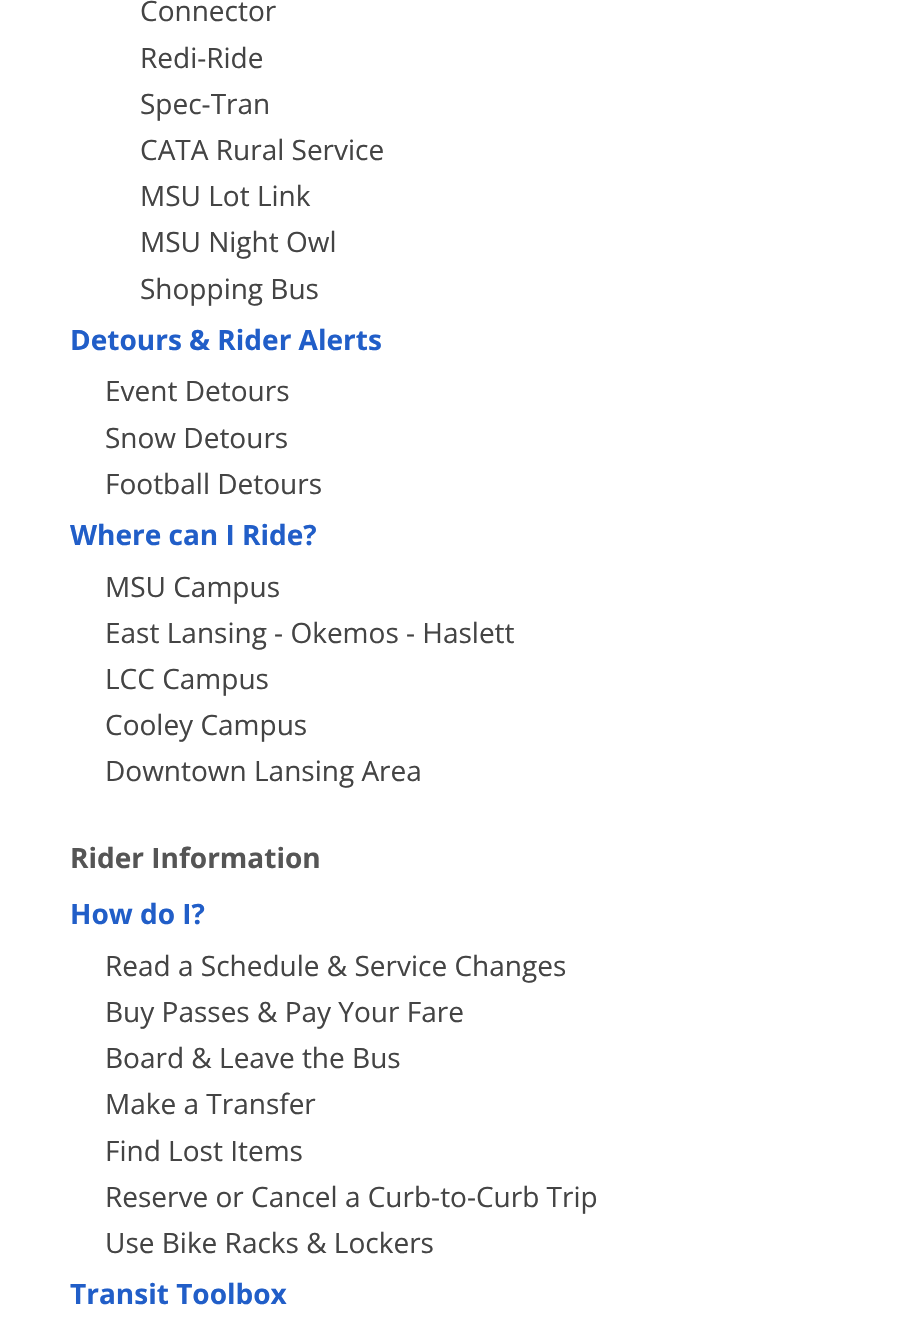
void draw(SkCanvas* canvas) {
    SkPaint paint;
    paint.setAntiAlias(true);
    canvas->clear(0xFFFFFFFF);
    SkFont font1(fontMgr->matchFamilyStyle("Open Sans", SkFontStyle::Normal()), 28);
    font1.setSubpixel(true);
    paint.setColor(0xFF444444);
    canvas->drawString("Connector", 140, 21, font1, paint);
    canvas->drawString("Redi-Ride", 140, 68, font1, paint);
    canvas->drawString("Spec-Tran", 140, 114, font1, paint);
    canvas->drawString("CATA Rural Service", 140, 160, font1, paint);
    canvas->drawString("MSU Lot Link", 140, 206, font1, paint);
    canvas->drawString("MSU Night Owl", 140, 252, font1, paint);
    canvas->drawString("Shopping Bus", 140, 299, font1, paint);
    SkFont font2(fontMgr->matchFamilyStyle("Open Sans", SkFontStyle::Bold()), 28);
    font2.setSubpixel(true);
    paint.setColor(0xFF215EC8);
    canvas->drawString("Detours & Rider Alerts", 70, 350, font2, paint);
    paint.setColor(0xFF444444);
    canvas->drawString("Event Detours", 105, 401, font1, paint);
    canvas->drawString("Snow Detours", 105, 448, font1, paint);
    canvas->drawString("Football Detours", 105, 494, font1, paint);
    paint.setColor(0xFF215EC8);
    canvas->drawString("Where can I Ride?", 70, 545, font2, paint);
    paint.setColor(0xFF444444);
    canvas->drawString("MSU Campus", 105, 597, font1, paint);
    canvas->drawString("East Lansing - Okemos - Haslett", 105, 643, font1, paint);
    canvas->drawString("LCC Campus", 105, 689, font1, paint);
    canvas->drawString("Cooley Campus", 105, 735, font1, paint);
    canvas->drawString("Downtown Lansing Area", 105, 781, font1, paint);
    paint.setColor(0xFF555555);
    canvas->drawString("Rider Information", 70, 868, font2, paint);
    paint.setColor(0xFF215EC8);
    canvas->drawString("How do I?", 70, 924, font2, paint);
    paint.setColor(0xFF444444);
    canvas->drawString("Read a Schedule & Service Changes", 105, 976, font1, paint);
    canvas->drawString("Buy Passes & Pay Your Fare", 105, 1022, font1, paint);
    canvas->drawString("Board & Leave the Bus", 105, 1068, font1, paint);
    canvas->drawString("Make a Transfer", 105, 1114, font1, paint);
    canvas->drawString("Find Lost Items", 105, 1161, font1, paint);
    canvas->drawString("Reserve or Cancel a Curb-to-Curb Trip", 105, 1207, font1, paint);
    canvas->drawString("Use Bike Racks & Lockers", 105, 1253, font1, paint);
    paint.setColor(0xFF215EC8);
    canvas->drawString("Transit Toolbox", 70, 1304, font2, paint);
}
